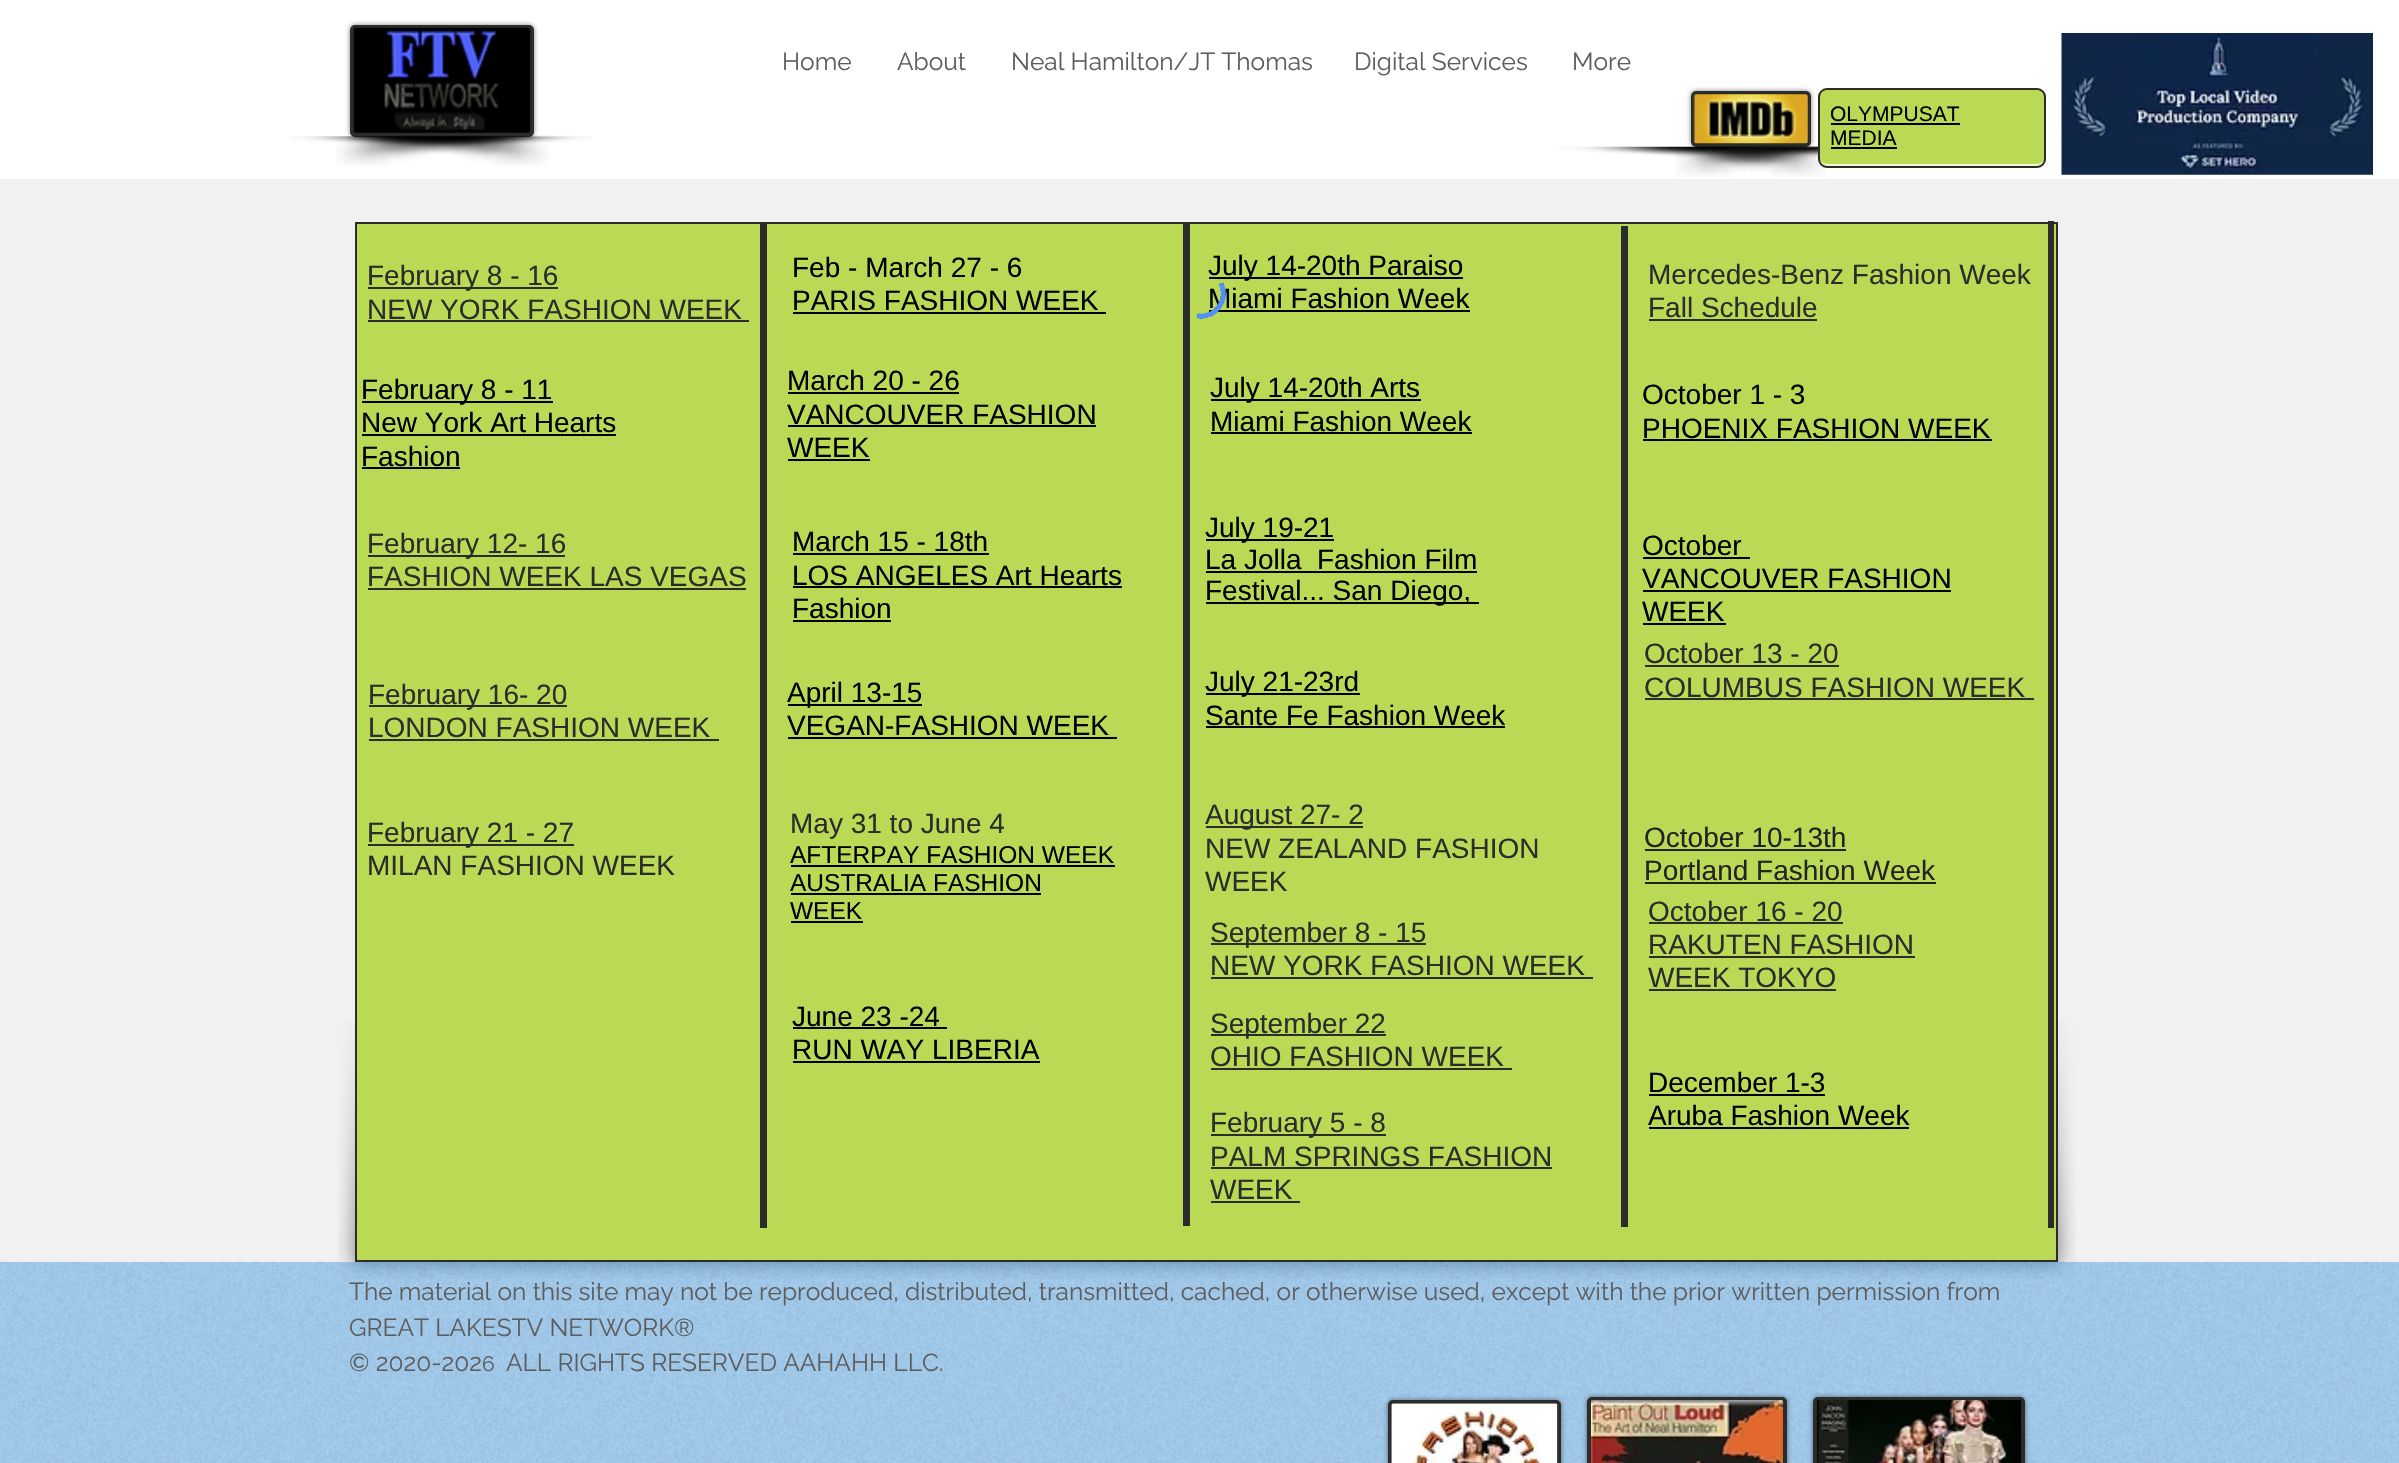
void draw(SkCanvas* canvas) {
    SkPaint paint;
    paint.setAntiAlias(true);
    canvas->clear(0xFFF1F1F1);
    paint.setColor(0xFFFFFFFF);
    canvas->drawRect(SkRect::MakeXYWH(0, 0, 2399, 179), paint);
    SkFont font1(fontMgr->matchFamilyStyle("Raleway", SkFontStyle::Normal()), 24.5f);
    font1.setSubpixel(true);
    paint.setColor(0xFF5E5D5D);
    canvas->drawString("Home", 782, 70, font1, paint);
    canvas->drawString("About", 897, 70, font1, paint);
    canvas->drawString("Neal Hamilton/JT Thomas", 1011, 70, font1, paint);
    canvas->drawString("Digital Services", 1354, 70, font1, paint);
    canvas->drawString("More", 1572, 70, font1, paint);
    paint.setColor(0x80000000);
    paint.setMaskFilter(SkMaskFilter::MakeBlur(kNormal_SkBlurStyle, 2.5f));
    canvas->drawRoundRect(SkRect::MakeXYWH(350, 25, 184, 112), 5, 5, paint);
    paint.setMaskFilter(nullptr);
    paint.setColor(0xFF2C2C2B);
    canvas->drawRoundRect(SkRect::MakeXYWH(352, 27, 180, 108), 3, 3, paint);
    paint.setStyle(SkPaint::kStroke_Style);
    paint.setStrokeWidth(4);
    canvas->drawRoundRect(SkRect::MakeXYWH(352, 27, 180, 108), 3, 3, paint);
    canvas->drawImageRect(SkImages::DeferredFromEncodedData(SkData::MakeFromFileName("img1.png")), SkRect::MakeXYWH(353, 27, 178, 106), SkSamplingOptions());
    canvas->drawImageRect(SkImages::DeferredFromEncodedData(SkData::MakeFromFileName("img2.png")), SkRect::MakeXYWH(336, 135, 256, 31), SkSamplingOptions());
    canvas->drawImageRect(SkImages::DeferredFromEncodedData(SkData::MakeFromFileName("img3.png")), SkRect::MakeXYWH(289, 136, 260, 31), SkSamplingOptions());
    canvas->save();
    canvas->clipPath(SkPathBuilder(SkPathFillType::kEvenOdd).moveTo(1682, 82).lineTo(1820, 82).lineTo(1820, 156).lineTo(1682, 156).close().moveTo(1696, 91).lineTo(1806, 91).cubicTo(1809, 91, 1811, 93, 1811, 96).lineTo(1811, 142).cubicTo(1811, 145, 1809, 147, 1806, 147).lineTo(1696, 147).cubicTo(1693, 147, 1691, 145, 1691, 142).lineTo(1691, 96).cubicTo(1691, 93, 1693, 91, 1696, 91).close().detach(), true);
    paint.setStyle(SkPaint::kFill_Style);
    paint.setColor(0x80000000);
    paint.setMaskFilter(SkMaskFilter::MakeBlur(kNormal_SkBlurStyle, 2.5f));
    canvas->drawRoundRect(SkRect::MakeXYWH(1691, 91, 120, 56), 5, 5, paint);
    paint.setMaskFilter(nullptr);
    canvas->restore();
    paint.setStyle(SkPaint::kStroke_Style);
    paint.setColor(0xFF2C2C2B);
    canvas->drawRoundRect(SkRect::MakeXYWH(1693, 93, 116, 52), 3, 3, paint);
    canvas->drawImageRect(SkImages::DeferredFromEncodedData(SkData::MakeFromFileName("img4.png")), SkRect::MakeXYWH(1693, 94, 115, 50), SkSamplingOptions());
    canvas->drawImageRect(SkImages::DeferredFromEncodedData(SkData::MakeFromFileName("img6.png")), SkRect::MakeXYWH(1676, 146, 142, 31), SkSamplingOptions());
    canvas->drawImageRect(SkImages::DeferredFromEncodedData(SkData::MakeFromFileName("img5.png")), SkRect::MakeXYWH(1558, 146, 268, 31), SkSamplingOptions());
    paint.setStyle(SkPaint::kFill_Style);
    paint.setColor(0xFFBADA55);
    canvas->drawRoundRect(SkRect::MakeXYWH(1818, 88, 228, 80), 9, 9, paint);
    paint.setColor(0xFFEEF6D5);
    canvas->drawPath(SkPathBuilder().moveTo(1820, 158).cubicTo(1820, 162, 1822, 165, 1826, 166).lineTo(2037, 166).cubicTo(2042, 166, 2044, 162, 2044, 158).cubicTo(2044, 161, 2041, 164, 2037, 164).lineTo(1827, 164).cubicTo(1823, 164, 1820, 161, 1820, 158).close().detach(), paint);
    paint.setStyle(SkPaint::kStroke_Style);
    paint.setStrokeWidth(2);
    paint.setColor(0xFF2C2C2B);
    canvas->drawRoundRect(SkRect::MakeXYWH(1819, 89, 226, 78), 8, 8, paint);
    SkFont font2(fontMgr->matchFamilyStyle("Liberation Sans", SkFontStyle::Normal()), 21);
    font2.setSubpixel(true);
    paint.setStyle(SkPaint::kFill_Style);
    paint.setColor(0xFF000000);
    canvas->drawString("OLYMPUSAT", 1830, 121, font2, paint);
    canvas->drawRect(SkRect::MakeXYWH(1831, 123, 129, 2), paint);
    canvas->drawString("MEDIA", 1830, 145, font2, paint);
    canvas->drawRect(SkRect::MakeXYWH(1831, 147, 66, 2), paint);
    canvas->drawImageRect(SkImages::DeferredFromEncodedData(SkData::MakeFromFileName("img7.png")), SkRect::MakeXYWH(2061, 33, 312, 142), SkSamplingOptions());
    canvas->drawImageRect(SkImages::DeferredFromEncodedData(SkData::MakeFromFileName("img9.png")), SkRect::MakeXYWH(338, 1021, 79, 258), SkSamplingOptions());
    canvas->drawImageRect(SkImages::DeferredFromEncodedData(SkData::MakeFromFileName("img10.png")), SkRect::MakeXYWH(416, 1262, 1581, 17), SkSamplingOptions());
    canvas->drawImageRect(SkImages::DeferredFromEncodedData(SkData::MakeFromFileName("img11.png")), SkRect::MakeXYWH(1996, 1021, 80, 258), SkSamplingOptions());
    paint.setColor(0xFFBADA55);
    canvas->drawRect(SkRect::MakeXYWH(356, 223, 1701, 1038), paint);
    paint.setStyle(SkPaint::kStroke_Style);
    paint.setColor(0xFF2C2C2B);
    canvas->drawRect(SkRect::MakeXYWH(356, 223, 1701, 1038), paint);
    SkFont font3(fontMgr->matchFamilyStyle("Liberation Sans", SkFontStyle::Normal()), 28);
    font3.setSubpixel(true);
    paint.setStyle(SkPaint::kFill_Style);
    paint.setColor(0xFF000000);
    canvas->drawString("Miami Fashion Week", 1208, 308, font3, paint);
    canvas->drawRect(SkRect::MakeXYWH(1209, 310, 261, 2), paint);
    canvas->drawImageRect(SkImages::DeferredFromEncodedData(SkData::MakeFromFileName("img8.png")), SkRect::MakeXYWH(1196, 282, 30, 37), SkSamplingOptions());
    paint.setColor(0xFF2C2C2B);
    canvas->drawRect(SkRect::MakeXYWH(368, 287, 190, 2), paint);
    canvas->drawString("February 8 - 16", 367, 285, font3, paint);
    canvas->drawString("NEW YORK FASHION WEEK", 367, 319, font3, paint);
    canvas->drawRect(SkRect::MakeXYWH(368, 320, 381, 2), paint);
    canvas->drawRect(SkRect::MakeXYWH(760, 224, 7, 1004), paint);
    paint.setColor(0xFF000000);
    canvas->drawString("Feb - March 27 - 6", 792, 277, font3, paint);
    canvas->drawString("PARIS FASHION WEEK", 792, 310, font3, paint);
    canvas->drawRect(SkRect::MakeXYWH(793, 312, 313, 2), paint);
    paint.setColor(0xFF2C2C2B);
    canvas->drawRect(SkRect::MakeXYWH(1183, 223, 7, 1003), paint);
    paint.setColor(0xFF000000);
    canvas->drawRect(SkRect::MakeXYWH(1209, 277, 254, 2), paint);
    canvas->drawString("July 14-20th Paraiso", 1208, 275, font3, paint);
    paint.setColor(0xFF2C2C2B);
    canvas->drawRect(SkRect::MakeXYWH(1621, 226, 7, 1001), paint);
    paint.setColor(0xFF000000);
    canvas->drawRect(SkRect::MakeXYWH(362, 401, 191, 2), paint);
    canvas->drawString("February 8 - 11", 361, 399, font3, paint);
    canvas->drawString("New York Art Hearts", 361, 432, font3, paint);
    canvas->drawRect(SkRect::MakeXYWH(362, 434, 254, 2), paint);
    canvas->drawString("Fashion", 361, 466, font3, paint);
    canvas->drawRect(SkRect::MakeXYWH(362, 467, 98, 2), paint);
    canvas->drawString("March 20 - 26", 787, 390, font3, paint);
    canvas->drawRect(SkRect::MakeXYWH(788, 392, 171, 2), paint);
    canvas->drawString("VANCOUVER FASHION", 787, 424, font3, paint);
    canvas->drawRect(SkRect::MakeXYWH(788, 425, 308, 2), paint);
    canvas->drawString("WEEK", 787, 457, font3, paint);
    canvas->drawRect(SkRect::MakeXYWH(788, 459, 82, 2), paint);
    canvas->drawRect(SkRect::MakeXYWH(1211, 399, 210, 2), paint);
    canvas->drawString("July 14-20th Arts", 1210, 397, font3, paint);
    canvas->drawString("Miami Fashion Week", 1210, 431, font3, paint);
    canvas->drawRect(SkRect::MakeXYWH(1211, 432, 261, 2), paint);
    paint.setColor(0xFF2C2C2B);
    canvas->drawRect(SkRect::MakeXYWH(368, 555, 197, 2), paint);
    canvas->drawString("February 12- 16", 367, 553, font3, paint);
    canvas->drawString("FASHION WEEK LAS VEGAS", 367, 586, font3, paint);
    canvas->drawRect(SkRect::MakeXYWH(368, 588, 378, 2), paint);
    paint.setColor(0xFF000000);
    canvas->drawString("March 15 - 18th", 792, 551, font3, paint);
    canvas->drawRect(SkRect::MakeXYWH(793, 553, 196, 2), paint);
    canvas->drawString("LOS ANGELES Art Hearts", 792, 585, font3, paint);
    canvas->drawRect(SkRect::MakeXYWH(793, 586, 329, 2), paint);
    canvas->drawString("Fashion", 792, 618, font3, paint);
    canvas->drawRect(SkRect::MakeXYWH(793, 620, 98, 2), paint);
    canvas->drawRect(SkRect::MakeXYWH(1206, 539, 128, 2), paint);
    canvas->drawString("July 19-21", 1205, 537, font3, paint);
    canvas->drawString("La Jolla", 1205, 569, font3, paint);
    canvas->drawRect(SkRect::MakeXYWH(1206, 571, 271, 2), paint);
    canvas->drawString("Fashion Film", 1317, 569, font3, paint);
    canvas->drawRect(SkRect::MakeXYWH(1206, 602, 273, 2), paint);
    canvas->drawString("Festival... San Diego,", 1205, 600, font3, paint);
    canvas->drawString("October", 1642, 555, font3, paint);
    canvas->drawRect(SkRect::MakeXYWH(1643, 557, 107, 2), paint);
    canvas->drawString("VANCOUVER FASHION", 1642, 588, font3, paint);
    canvas->drawRect(SkRect::MakeXYWH(1643, 590, 308, 2), paint);
    canvas->drawString("WEEK", 1642, 621, font3, paint);
    canvas->drawRect(SkRect::MakeXYWH(1643, 623, 83, 2), paint);
    paint.setColor(0xFF2C2C2B);
    canvas->drawRect(SkRect::MakeXYWH(369, 705, 198, 2), paint);
    canvas->drawString("February 16- 20", 368, 704, font3, paint);
    canvas->drawString("LONDON FASHION WEEK", 368, 737, font3, paint);
    canvas->drawRect(SkRect::MakeXYWH(369, 739, 350, 2), paint);
    paint.setColor(0xFF000000);
    canvas->drawRect(SkRect::MakeXYWH(788, 704, 134, 2), paint);
    canvas->drawString("April 13-15", 787, 702, font3, paint);
    canvas->drawString("VEGAN-FASHION WEEK", 787, 735, font3, paint);
    canvas->drawRect(SkRect::MakeXYWH(788, 737, 329, 2), paint);
    canvas->drawRect(SkRect::MakeXYWH(1206, 693, 154, 2), paint);
    canvas->drawString("July 21-23rd", 1205, 691, font3, paint);
    canvas->drawString("Sante Fe Fashion Week", 1205, 725, font3, paint);
    canvas->drawRect(SkRect::MakeXYWH(1206, 726, 299, 2), paint);
    paint.setColor(0xFF2C2C2B);
    canvas->drawRect(SkRect::MakeXYWH(368, 844, 206, 2), paint);
    canvas->drawString("February 21 - 27", 367, 842, font3, paint);
    canvas->drawString("MILAN FASHION WEEK", 367, 875, font3, paint);
    canvas->drawString("May 31 to June 4", 790, 833, font3, paint);
    SkFont font4(fontMgr->matchFamilyStyle("Liberation Sans", SkFontStyle::Normal()), 24.5f);
    font4.setSubpixel(true);
    paint.setColor(0xFF000000);
    canvas->drawString("AFTERPAY FASHION WEEK", 790, 863, font4, paint);
    canvas->drawRect(SkRect::MakeXYWH(791, 865, 324, 2), paint);
    canvas->drawString("AUSTRALIA FASHION", 790, 891, font4, paint);
    canvas->drawRect(SkRect::MakeXYWH(791, 893, 250, 2), paint);
    canvas->drawString("WEEK", 790, 919, font4, paint);
    canvas->drawRect(SkRect::MakeXYWH(791, 921, 72, 2), paint);
    paint.setColor(0xFF2C2C2B);
    canvas->drawRect(SkRect::MakeXYWH(1206, 826, 157, 2), paint);
    canvas->drawString("August 27- 2", 1205, 824, font3, paint);
    canvas->drawString("NEW ZEALAND FASHION", 1205, 858, font3, paint);
    canvas->drawString("WEEK", 1205, 891, font3, paint);
    paint.setColor(0xFF242323);
    canvas->drawString("October 10-13th", 1644, 847, font3, paint);
    canvas->drawRect(SkRect::MakeXYWH(1645, 849, 201, 2), paint);
    canvas->drawString("Portland Fashion Week", 1644, 880, font3, paint);
    canvas->drawRect(SkRect::MakeXYWH(1645, 882, 291, 2), paint);
    paint.setColor(0xFF2C2C2B);
    canvas->drawRect(SkRect::MakeXYWH(1211, 943, 215, 2), paint);
    canvas->drawString("September 8 - 15", 1210, 942, font3, paint);
    canvas->drawString("NEW YORK FASHION WEEK", 1210, 975, font3, paint);
    canvas->drawRect(SkRect::MakeXYWH(1211, 977, 382, 2), paint);
    paint.setColor(0xFF000000);
    canvas->drawString("June 23 -24", 792, 1026, font3, paint);
    canvas->drawRect(SkRect::MakeXYWH(793, 1027, 154, 2), paint);
    canvas->drawString("RUN WAY LIBERIA", 792, 1059, font3, paint);
    canvas->drawRect(SkRect::MakeXYWH(793, 1061, 247, 2), paint);
    paint.setColor(0xFF2C2C2B);
    canvas->drawRect(SkRect::MakeXYWH(1211, 1034, 175, 2), paint);
    canvas->drawString("September 22", 1210, 1033, font3, paint);
    canvas->drawString("OHIO FASHION WEEK", 1210, 1066, font3, paint);
    canvas->drawRect(SkRect::MakeXYWH(1211, 1068, 301, 2), paint);
    paint.setColor(0xFF000000);
    canvas->drawString("December 1-3", 1648, 1092, font3, paint);
    canvas->drawRect(SkRect::MakeXYWH(1649, 1094, 176, 2), paint);
    canvas->drawString("Aruba Fashion Week", 1648, 1125, font3, paint);
    canvas->drawRect(SkRect::MakeXYWH(1649, 1127, 260, 2), paint);
    paint.setColor(0xFF2C2C2B);
    canvas->drawRect(SkRect::MakeXYWH(1211, 1134, 175, 2), paint);
    canvas->drawString("February 5 - 8", 1210, 1132, font3, paint);
    canvas->drawString("PALM SPRINGS FASHION", 1210, 1166, font3, paint);
    canvas->drawRect(SkRect::MakeXYWH(1211, 1167, 341, 2), paint);
    canvas->drawString("WEEK", 1210, 1199, font3, paint);
    canvas->drawRect(SkRect::MakeXYWH(1211, 1201, 89, 2), paint);
    canvas->drawRect(SkRect::MakeXYWH(2048, 221, 6, 1007), paint);
    canvas->drawString("Mercedes-Benz Fashion Week", 1648, 284, font3, paint);
    canvas->drawString("Fall Schedule", 1648, 317, font3, paint);
    canvas->drawRect(SkRect::MakeXYWH(1649, 319, 168, 2), paint);
    paint.setColor(0xFF000000);
    canvas->drawString("October 1 - 3", 1642, 404, font3, paint);
    canvas->drawString("PHOENIX FASHION WEEK", 1642, 438, font3, paint);
    canvas->drawRect(SkRect::MakeXYWH(1643, 439, 349, 2), paint);
    paint.setColor(0xFF2C2C2B);
    canvas->drawString("October 13 - 20", 1644, 663, font3, paint);
    canvas->drawRect(SkRect::MakeXYWH(1645, 665, 194, 2), paint);
    canvas->drawString("COLUMBUS FASHION WEEK", 1644, 697, font3, paint);
    canvas->drawRect(SkRect::MakeXYWH(1645, 698, 389, 2), paint);
    canvas->drawString("October 16 - 20", 1648, 921, font3, paint);
    canvas->drawRect(SkRect::MakeXYWH(1649, 922, 194, 2), paint);
    canvas->drawString("RAKUTEN FASHION", 1648, 954, font3, paint);
    canvas->drawRect(SkRect::MakeXYWH(1649, 956, 266, 2), paint);
    canvas->drawString("WEEK TOKYO", 1648, 987, font3, paint);
    canvas->drawRect(SkRect::MakeXYWH(1649, 989, 187, 2), paint);
    paint.setColor(0x6E3D9BE9);
    canvas->drawRect(SkRect::MakeXYWH(0, 1262, 2399, 201), paint);
    canvas->drawImageRect(SkImages::DeferredFromEncodedData(SkData::MakeFromFileName("img12.png")), SkRect::MakeXYWH(0, 1261, 2399, 202), SkSamplingOptions());
    paint.setColor(0xFF5E5D5D);
    canvas->drawString("The material on this site may not be reproduced, distributed, transmitted, cached, or otherwise used, except with the prior written permission from", 349, 1300, font1, paint);
    canvas->drawString("GREAT LAKESTV NETWORK®", 349, 1336, font1, paint);
    canvas->drawString("© 2020-202", 349, 1371, font1, paint);
    SkFont font5(fontMgr->matchFamilyStyle("Raleway", SkFontStyle::Normal()), 21);
    font5.setSubpixel(true);
    canvas->drawString("6", 482, 1371, font5, paint);
    canvas->drawString("ALL RIGHTS RESERVED AAHAHH LLC.", 506, 1371, font1, paint);
    paint.setColor(0x80000000);
    paint.setMaskFilter(SkMaskFilter::MakeBlur(kNormal_SkBlurStyle, 2.5f));
    canvas->drawRoundRect(SkRect::MakeXYWH(1388, 1400, 173, 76), 5, 5, paint);
    paint.setMaskFilter(nullptr);
    paint.setStyle(SkPaint::kStroke_Style);
    paint.setStrokeWidth(4);
    paint.setColor(0xFF2C2C2B);
    canvas->drawRoundRect(SkRect::MakeXYWH(1390, 1402, 169, 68), 3, 3, paint);
    canvas->drawImageRect(SkImages::DeferredFromEncodedData(SkData::MakeFromFileName("img13.png")), SkRect::MakeXYWH(1391, 1403, 167, 60), SkSamplingOptions());
    paint.setStyle(SkPaint::kFill_Style);
    paint.setColor(0x80000000);
    paint.setMaskFilter(SkMaskFilter::MakeBlur(kNormal_SkBlurStyle, 2.5f));
    canvas->drawRoundRect(SkRect::MakeXYWH(1587, 1397, 200, 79), 5, 5, paint);
    paint.setMaskFilter(nullptr);
    paint.setStyle(SkPaint::kStroke_Style);
    paint.setColor(0xFF2C2C2B);
    canvas->drawRoundRect(SkRect::MakeXYWH(1589, 1399, 196, 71), 3, 3, paint);
    canvas->drawImageRect(SkImages::DeferredFromEncodedData(SkData::MakeFromFileName("img14.png")), SkRect::MakeXYWH(1591, 1400, 192, 63), SkSamplingOptions());
    paint.setStyle(SkPaint::kFill_Style);
    paint.setColor(0x80000000);
    paint.setMaskFilter(SkMaskFilter::MakeBlur(kNormal_SkBlurStyle, 2.5f));
    canvas->drawRoundRect(SkRect::MakeXYWH(1813, 1397, 212, 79), 5, 5, paint);
    paint.setMaskFilter(nullptr);
    paint.setStyle(SkPaint::kStroke_Style);
    paint.setColor(0xFF2C2C2B);
    canvas->drawRoundRect(SkRect::MakeXYWH(1815, 1399, 208, 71), 3, 3, paint);
    canvas->drawImageRect(SkImages::DeferredFromEncodedData(SkData::MakeFromFileName("img15.png")), SkRect::MakeXYWH(1816, 1400, 205, 63), SkSamplingOptions());
}
